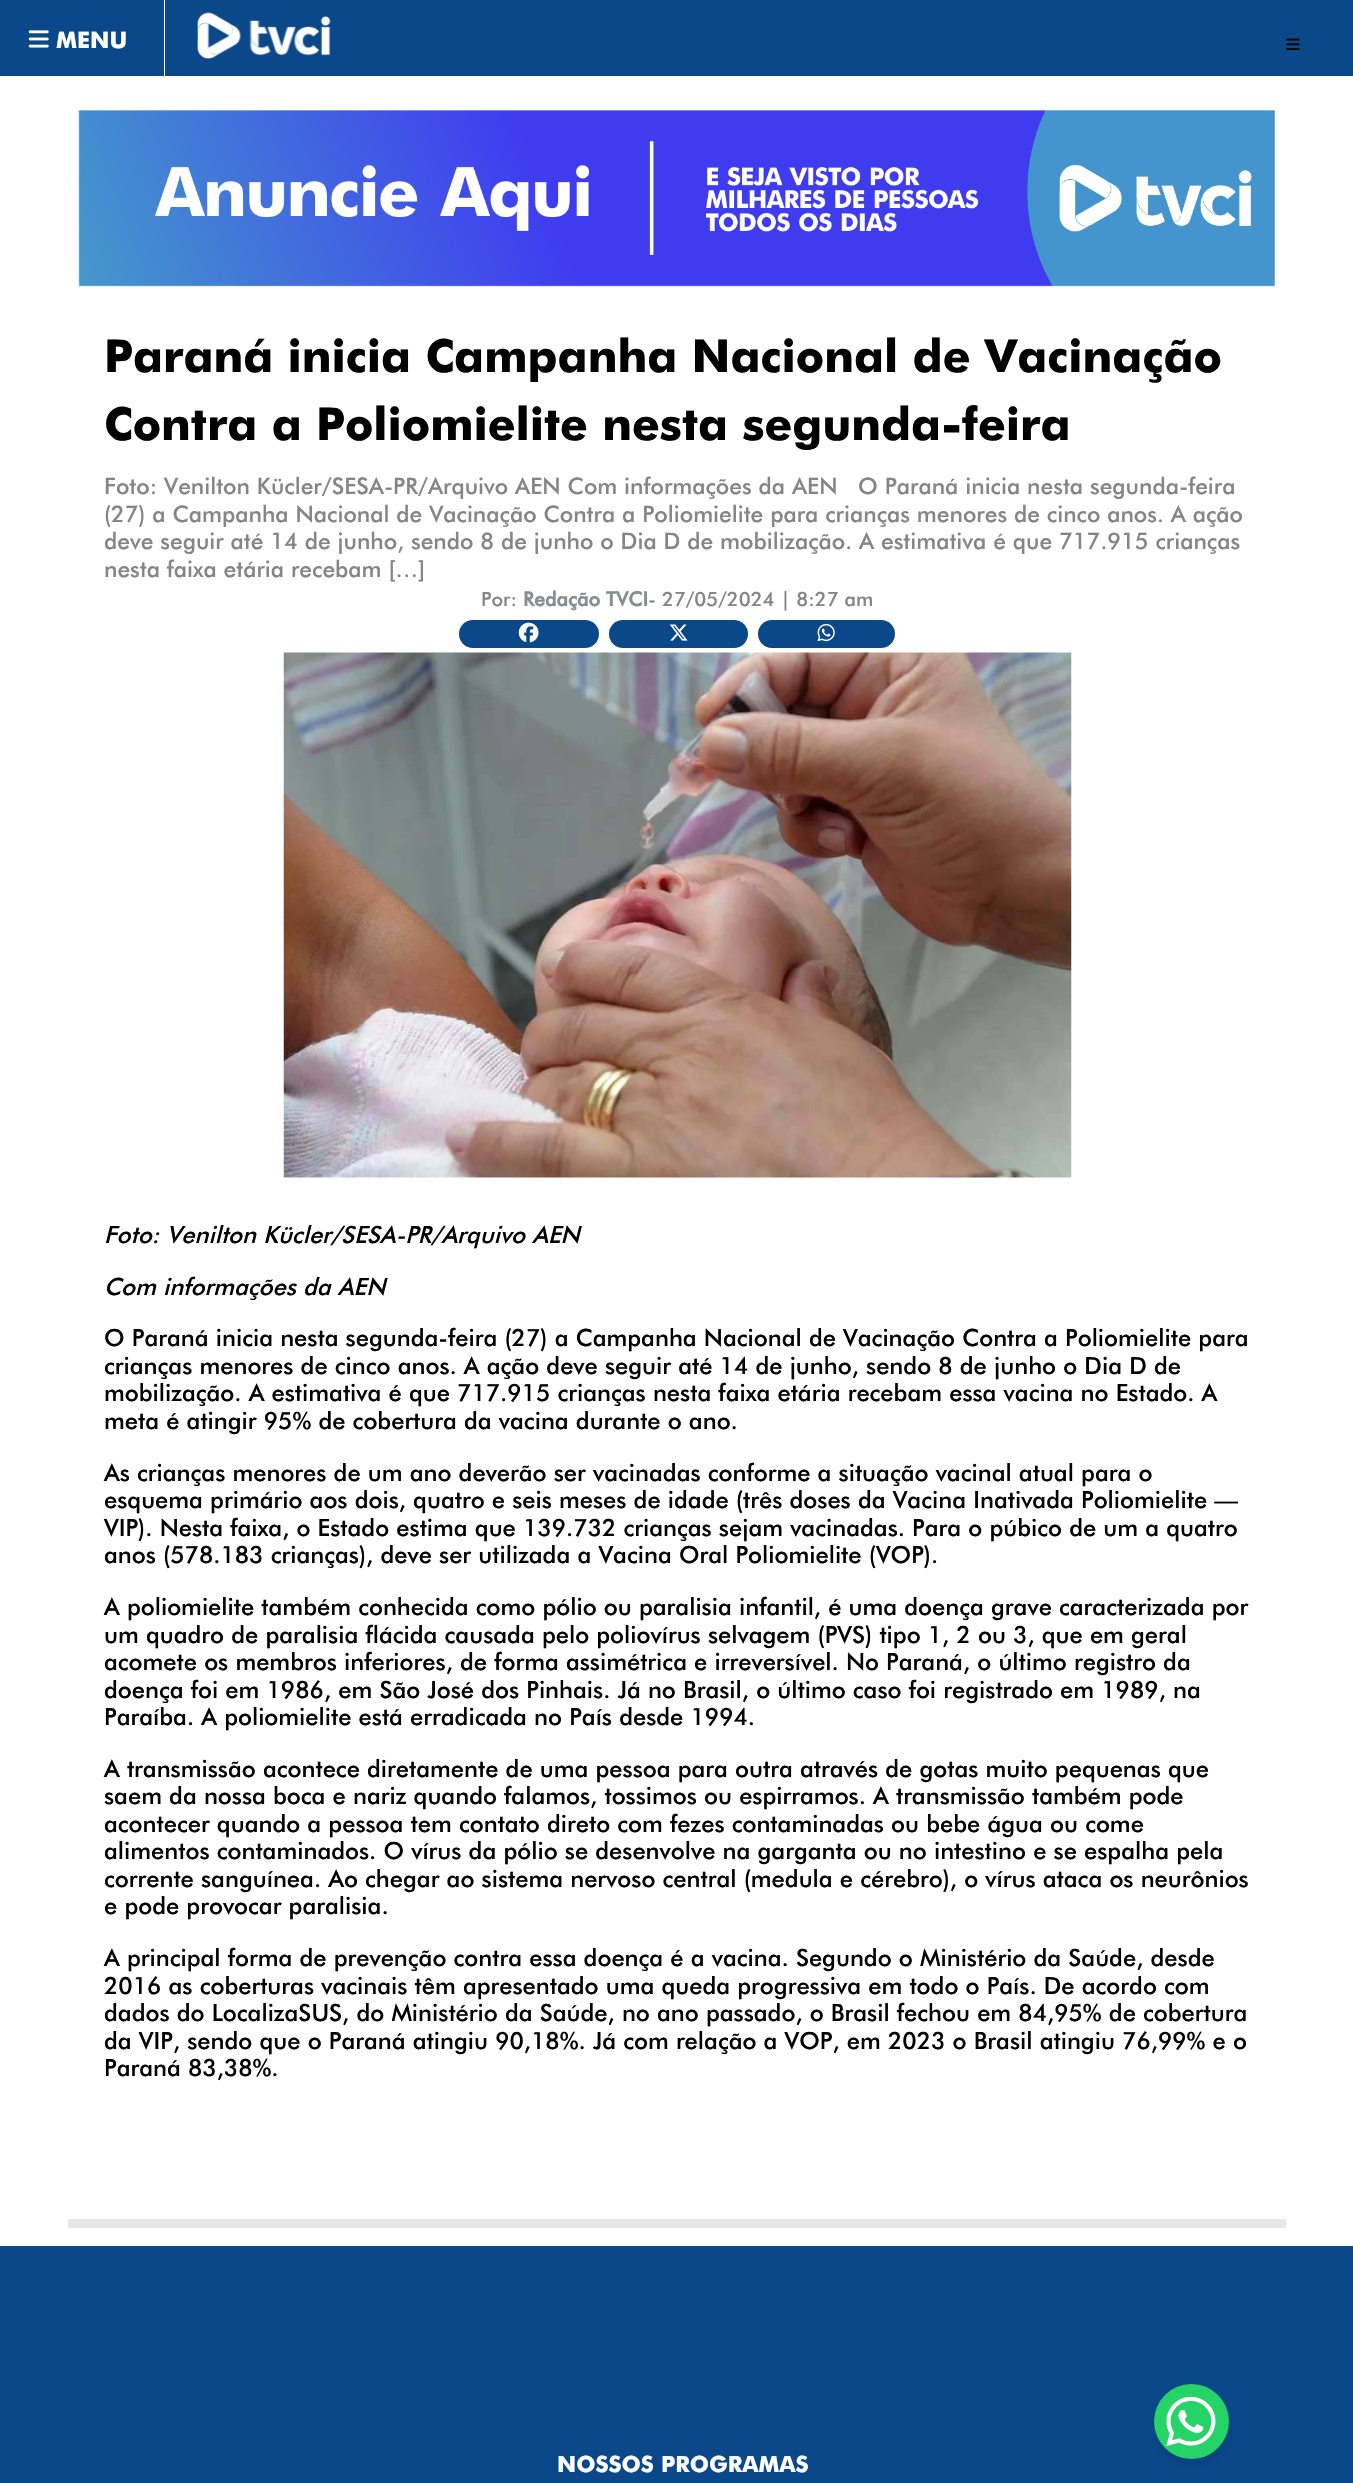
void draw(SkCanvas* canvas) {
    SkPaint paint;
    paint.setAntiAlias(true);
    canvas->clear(0xFFFFFFFF);
    paint.setColor(0xFF0A488A);
    canvas->drawRect(SkRect::MakeXYWH(0, 0, 1353, 76), paint);
    paint.setColor(0xFFFFFFFF);
    canvas->drawRect(SkRect::MakeXYWH(164, 0, 1, 76), paint);
    canvas->drawImageRect(SkImages::DeferredFromEncodedData(SkData::MakeFromFileName("img1.png")), SkRect::MakeXYWH(28, 30, 21, 18), SkSamplingOptions());
    SkFont font1(fontMgr->matchFamilyStyle("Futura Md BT", SkFontStyle::Bold()), 22.8f);
    font1.setSubpixel(true);
    canvas->drawString("MENU", 56, 48, font1, paint);
    canvas->drawImageRect(SkImages::DeferredFromEncodedData(SkData::MakeFromFileName("img2.png")), SkRect::MakeXYWH(197, 12, 134, 47), SkSamplingOptions());
    canvas->drawImageRect(SkImages::DeferredFromEncodedData(SkData::MakeFromFileName("img3.png")), SkRect::MakeXYWH(1286, 38, 14, 12), SkSamplingOptions());
    canvas->drawImageRect(SkImages::DeferredFromEncodedData(SkData::MakeFromFileName("img4.png")), SkRect::MakeXYWH(78, 110, 1197, 177), SkSamplingOptions());
    SkFont font2(fontMgr->matchFamilyStyle("Futura Md BT", SkFontStyle::Bold()), 45.6f);
    font2.setSubpixel(true);
    paint.setColor(0xFF000000);
    canvas->drawString("Paraná inicia Campanha Nacional de Vacinação", 104, 372, font2, paint);
    canvas->drawString("Contra a Poliomielite nesta segunda-feira", 104, 440, font2, paint);
    SkFont font3(fontMgr->matchFamilyStyle("Futura Md BT", SkFontStyle(500, SkFontStyle::kNormal_Width, SkFontStyle::kUpright_Slant)), 22.8f);
    font3.setSubpixel(true);
    paint.setColor(0xFF858585);
    canvas->drawString("Foto: Venilton Kücler/SESA-PR/Arquivo AEN Com informações da AEN", 104, 494, font3, paint);
    canvas->drawString("O Paraná inicia nesta segunda-feira", 858, 494, font3, paint);
    canvas->drawString("(27) a Campanha Nacional de Vacinação Contra a Poliomielite para crianças menores de cinco anos. A ação", 104, 522, font3, paint);
    canvas->drawString("deve seguir até 14 de junho, sendo 8 de junho o Dia D de mobilização. A estimativa é que 717.915 crianças", 104, 549, font3, paint);
    canvas->drawString("nesta faixa etária recebam […]", 104, 577, font3, paint);
    SkFont font4(fontMgr->matchFamilyStyle("Futura Md BT", SkFontStyle(500, SkFontStyle::kNormal_Width, SkFontStyle::kUpright_Slant)), 19.75f);
    font4.setSubpixel(true);
    canvas->drawString("Por:", 481, 606, font4, paint);
    SkFont font5(fontMgr->matchFamilyStyle("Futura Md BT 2", SkFontStyle::Bold()), 19.75f);
    font5.setSubpixel(true);
    paint.setColor(0xFF878E94);
    canvas->drawString("Redação TVCI", 523, 606, font5, paint);
    paint.setColor(0xFF858585);
    canvas->drawString("- 27/05/2024 | 8:27 am", 648, 606, font4, paint);
    paint.setColor(0xFF0A488A);
    canvas->drawRoundRect(SkRect::MakeXYWH(459, 620, 140, 28), 14, 14, paint);
    canvas->drawImageRect(SkImages::DeferredFromEncodedData(SkData::MakeFromFileName("img5.png")), SkRect::MakeXYWH(518, 622, 21, 21), SkSamplingOptions());
    canvas->drawRoundRect(SkRect::MakeXYWH(609, 620, 139, 28), 14, 14, paint);
    canvas->drawImageRect(SkImages::DeferredFromEncodedData(SkData::MakeFromFileName("img6.png")), SkRect::MakeXYWH(669, 624, 19, 17), SkSamplingOptions());
    canvas->drawRoundRect(SkRect::MakeXYWH(758, 620, 137, 28), 14, 14, paint);
    canvas->drawImageRect(SkImages::DeferredFromEncodedData(SkData::MakeFromFileName("img7.png")), SkRect::MakeXYWH(817, 623, 18, 19), SkSamplingOptions());
    canvas->drawImageRect(SkImages::DeferredFromEncodedData(SkData::MakeFromFileName("img8.png")), SkRect::MakeXYWH(283, 652, 789, 526), SkSamplingOptions());
    SkFont font6(fontMgr->matchFamilyStyle("Futura Md BT", SkFontStyle(500, SkFontStyle::kNormal_Width, SkFontStyle::kItalic_Slant)), 23.75f);
    font6.setSubpixel(true);
    paint.setColor(0xFF000000);
    canvas->drawString("Foto: Venilton Kücler/SESA-PR/Arquivo AEN", 104, 1243, font6, paint);
    canvas->drawString("Com informações da AEN", 104, 1295, font6, paint);
    SkFont font7(fontMgr->matchFamilyStyle("Futura Md BT", SkFontStyle(500, SkFontStyle::kNormal_Width, SkFontStyle::kUpright_Slant)), 23.75f);
    font7.setSubpixel(true);
    canvas->drawString("O Paraná inicia nesta segunda-feira (27) a Campanha Nacional de Vacinação Contra a Poliomielite para", 104, 1346, font7, paint);
    canvas->drawString("crianças menores de cinco anos. A ação deve seguir até 14 de junho, sendo 8 de junho o Dia D de", 104, 1374, font7, paint);
    canvas->drawString("mobilização. A estimativa é que 717.915 crianças nesta faixa etária recebam essa vacina no Estado. A", 104, 1401, font7, paint);
    canvas->drawString("meta é atingir 95% de cobertura da vacina durante o ano.", 104, 1429, font7, paint);
    canvas->drawString("As crianças menores de um ano deverão ser vacinadas conforme a situação vacinal atual para o", 104, 1481, font7, paint);
    canvas->drawString("esquema primário aos dois, quatro e seis meses de idade (três doses da Vacina Inativada Poliomielite —", 104, 1508, font7, paint);
    canvas->drawString("VIP). Nesta faixa, o Estado estima que 139.732 crianças sejam vacinadas. Para o púbico de um a quatro", 104, 1536, font7, paint);
    canvas->drawString("anos (578.183 crianças), deve ser utilizada a Vacina Oral Poliomielite (VOP).", 104, 1563, font7, paint);
    canvas->drawString("A poliomielite também conhecida como pólio ou paralisia infantil, é uma doença grave caracterizada por", 104, 1615, font7, paint);
    canvas->drawString("um quadro de paralisia flácida causada pelo poliovírus selvagem (PVS) tipo 1, 2 ou 3, que em geral", 104, 1643, font7, paint);
    canvas->drawString("acomete os membros inferiores, de forma assimétrica e irreversível. No Paraná, o último registro da", 104, 1670, font7, paint);
    canvas->drawString("doença foi em 1986, em São José dos Pinhais. Já no Brasil, o último caso foi registrado em 1989, na", 104, 1698, font7, paint);
    canvas->drawString("Paraíba. A poliomielite está erradicada no País desde 1994.", 104, 1725, font7, paint);
    canvas->drawString("A transmissão acontece diretamente de uma pessoa para outra através de gotas muito pequenas que", 104, 1777, font7, paint);
    canvas->drawString("saem da nossa boca e nariz quando falamos, tossimos ou espirramos. A transmissão também pode", 104, 1804, font7, paint);
    canvas->drawString("acontecer quando a pessoa tem contato direto com fezes contaminadas ou bebe água ou come", 104, 1832, font7, paint);
    canvas->drawString("alimentos contaminados. O vírus da pólio se desenvolve na garganta ou no intestino e se espalha pela", 104, 1859, font7, paint);
    canvas->drawString("corrente sanguínea. Ao chegar ao sistema nervoso central (medula e cérebro), o vírus ataca os neurônios", 104, 1887, font7, paint);
    canvas->drawString("e pode provocar paralisia.", 104, 1914, font7, paint);
    canvas->drawString("A principal forma de prevenção contra essa doença é a vacina. Segundo o Ministério da Saúde, desde", 104, 1966, font7, paint);
    canvas->drawString("2016 as coberturas vacinais têm apresentado uma queda progressiva em todo o País. De acordo com", 104, 1994, font7, paint);
    canvas->drawString("dados do LocalizaSUS, do Ministério da Saúde, no ano passado, o Brasil fechou em 84,95% de cobertura", 104, 2021, font7, paint);
    canvas->drawString("da VIP, sendo que o Paraná atingiu 90,18%. Já com relação a VOP, em 2023 o Brasil atingiu 76,99% e o", 104, 2049, font7, paint);
    canvas->drawString("Paraná 83,38%.", 104, 2076, font7, paint);
    paint.setColor(0xFFE6E7E8);
    canvas->drawRect(SkRect::MakeXYWH(68, 2219, 1218, 9), paint);
    paint.setColor(0xFF0A488A);
    canvas->drawRect(SkRect::MakeXYWH(0, 2246, 1353, 142), paint);
    canvas->drawRect(SkRect::MakeXYWH(0, 2388, 1353, 95), paint);
    SkFont font8(fontMgr->matchFamilyStyle("Futura Md BT", SkFontStyle::Bold()), 22.5f);
    font8.setSubpixel(true);
    paint.setColor(0xFFFFFFFF);
    canvas->drawString("NOSSOS PROGRAMAS", 557, 2472, font8, paint);
    paint.setColor(0x1A000000);
    paint.setMaskFilter(SkMaskFilter::MakeBlur(kNormal_SkBlurStyle, 4));
    canvas->drawRoundRect(SkRect::MakeXYWH(1154, 2389, 75, 75), 37.5f, 37.5f, paint);
    paint.setMaskFilter(nullptr);
    paint.setColor(0xFF25D366);
    canvas->drawCircle(1191.5f, 2421.5f, 37.5f, paint);
    canvas->drawImageRect(SkImages::DeferredFromEncodedData(SkData::MakeFromFileName("img9.png")), SkRect::MakeXYWH(1166, 2396, 50, 50), SkSamplingOptions());
}
